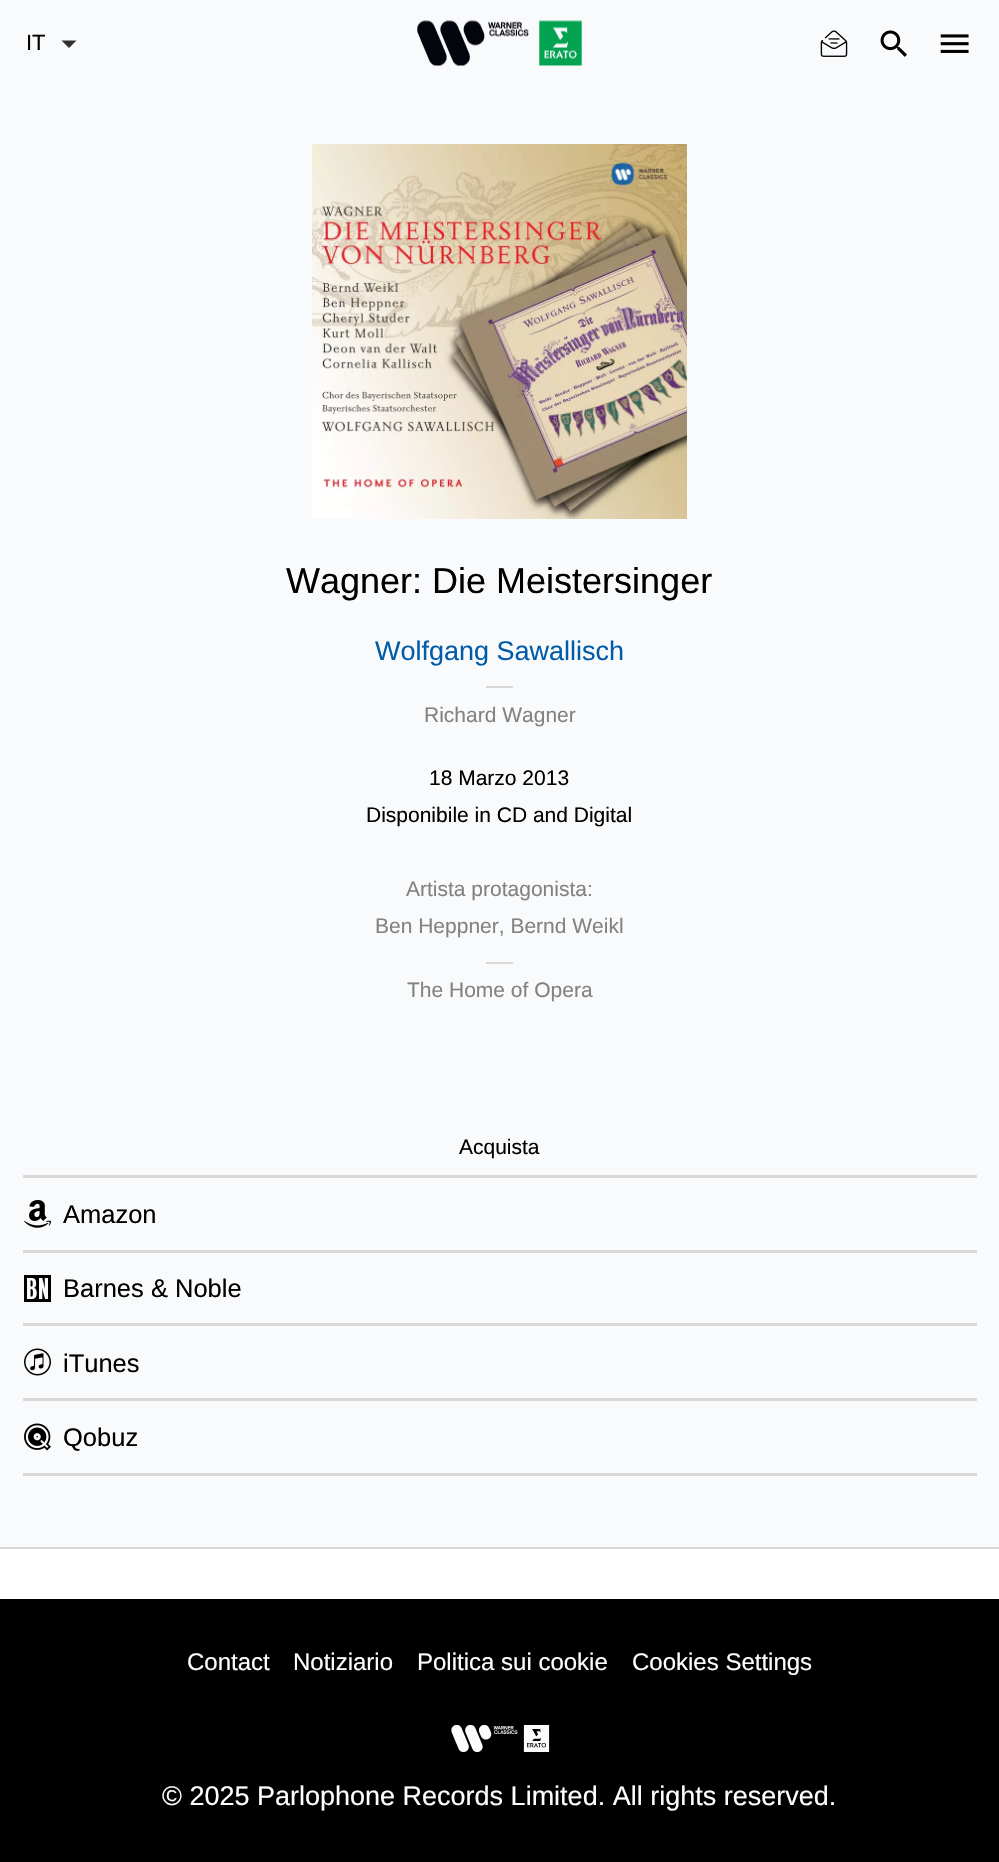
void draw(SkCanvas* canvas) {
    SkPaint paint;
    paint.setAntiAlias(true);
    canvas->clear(0xFFFFFFFF);
    paint.setColor(0xFFF9FAFB);
    canvas->drawRect(SkRect::MakeXYWH(0, 0, 999, 1547), paint);
    SkFont font1(fontMgr->matchFamilyStyle("Liberation Sans", SkFontStyle::Normal()), 22);
    font1.setSubpixel(true);
    paint.setColor(0xFF000000);
    canvas->drawString("IT", 26, 50, font1, paint);
    paint.setColor(0xFF323130);
    canvas->drawPath(SkPathBuilder().moveTo(61.5f, 40.5f).lineTo(76.5f, 40.5f).lineTo(69, 48).close().detach(), paint);
    canvas->drawImageRect(SkImages::DeferredFromEncodedData(SkData::MakeFromFileName("img1.png")), SkRect::MakeXYWH(417, 20, 165, 46), SkSamplingOptions());
    canvas->drawImageRect(SkImages::DeferredFromEncodedData(SkData::MakeFromFileName("img2.png")), SkRect::MakeXYWH(820, 30, 28, 27), SkSamplingOptions());
    canvas->drawImageRect(SkImages::DeferredFromEncodedData(SkData::MakeFromFileName("img3.png")), SkRect::MakeXYWH(880, 30, 27, 27), SkSamplingOptions());
    canvas->drawImageRect(SkImages::DeferredFromEncodedData(SkData::MakeFromFileName("img4.png")), SkRect::MakeXYWH(940, 34, 29, 19), SkSamplingOptions());
    canvas->drawImageRect(SkImages::DeferredFromEncodedData(SkData::MakeFromFileName("img5.png")), SkRect::MakeXYWH(312, 144, 375, 375), SkSamplingOptions());
    SkFont font2(fontMgr->matchFamilyStyle("Liberation Sans", SkFontStyle::Normal()), 36);
    font2.setSubpixel(true);
    paint.setColor(0xFF000000);
    canvas->drawString("Wagner: Die Meistersinger", 286, 593, font2, paint);
    SkFont font3(fontMgr->matchFamilyStyle("Liberation Sans", SkFontStyle::Normal()), 27);
    font3.setSubpixel(true);
    paint.setColor(0xFF005BA9);
    canvas->drawString("Wolfgang Sawallisch", 375, 660, font3, paint);
    paint.setColor(0xFFD8D8D8);
    canvas->drawRect(SkRect::MakeXYWH(486, 686, 27, 2), paint);
    SkFont font4(fontMgr->matchFamilyStyle("Liberation Sans", SkFontStyle::Normal()), 21);
    font4.setSubpixel(true);
    paint.setColor(0xFF828282);
    canvas->drawString("Richard Wagner", 424, 722, font4, paint);
    paint.setColor(0xFF000000);
    canvas->drawString("18 Marzo 2013", 429, 785, font4, paint);
    canvas->drawString("Disponibile in CD and Digital", 366, 822, font4, paint);
    paint.setColor(0xFF828282);
    canvas->drawString("Artista protagonista:", 406, 896, font4, paint);
    canvas->drawString("Ben Heppner, Bernd Weikl", 375, 933, font4, paint);
    paint.setColor(0xFFD8D8D8);
    canvas->drawRect(SkRect::MakeXYWH(486, 962, 27, 2), paint);
    paint.setColor(0xFF828282);
    canvas->drawString("The Home of Opera", 407, 997, font4, paint);
    paint.setColor(0xFFD8D8D8);
    canvas->drawRect(SkRect::MakeXYWH(0, 1547, 999, 2), paint);
    paint.setColor(0xFF000000);
    canvas->drawString("Acquista", 459, 1154, font4, paint);
    paint.setColor(0xFFD8D8D8);
    canvas->drawRect(SkRect::MakeXYWH(23, 1175, 954, 3), paint);
    canvas->drawRect(SkRect::MakeXYWH(23, 1250, 954, 3), paint);
    canvas->drawImageRect(SkImages::DeferredFromEncodedData(SkData::MakeFromFileName("img6.png")), SkRect::MakeXYWH(24, 1200, 27, 28), SkSamplingOptions());
    SkFont font5(fontMgr->matchFamilyStyle("Liberation Sans", SkFontStyle::Normal()), 25.5f);
    font5.setSubpixel(true);
    paint.setColor(0xFF000000);
    canvas->drawString("Amazon", 63, 1223, font5, paint);
    paint.setColor(0xFFD8D8D8);
    canvas->drawRect(SkRect::MakeXYWH(23, 1323, 954, 3), paint);
    canvas->drawImageRect(SkImages::DeferredFromEncodedData(SkData::MakeFromFileName("img7.png")), SkRect::MakeXYWH(24, 1275, 27, 27), SkSamplingOptions());
    paint.setColor(0xFF000000);
    canvas->drawString("Barnes & Noble", 63, 1297, font5, paint);
    paint.setColor(0xFFD8D8D8);
    canvas->drawRect(SkRect::MakeXYWH(23, 1398, 954, 3), paint);
    canvas->drawImageRect(SkImages::DeferredFromEncodedData(SkData::MakeFromFileName("img8.png")), SkRect::MakeXYWH(24, 1348, 27, 28), SkSamplingOptions());
    paint.setColor(0xFF000000);
    canvas->drawString("iTunes", 63, 1372, font5, paint);
    paint.setColor(0xFFD8D8D8);
    canvas->drawRect(SkRect::MakeXYWH(23, 1473, 954, 3), paint);
    canvas->drawImageRect(SkImages::DeferredFromEncodedData(SkData::MakeFromFileName("img9.png")), SkRect::MakeXYWH(24, 1423, 27, 28), SkSamplingOptions());
    paint.setColor(0xFF000000);
    canvas->drawString("Qobuz", 63, 1446, font5, paint);
    canvas->drawRect(SkRect::MakeXYWH(0, 1599, 999, 263), paint);
    SkFont font6(fontMgr->matchFamilyStyle("Liberation Sans", SkFontStyle::Normal()), 24);
    font6.setSubpixel(true);
    paint.setColor(0xFFFFFFFF);
    canvas->drawString("Contact", 187, 1670, font6, paint);
    canvas->drawString("Notiziario", 293, 1670, font6, paint);
    canvas->drawString("Politica sui cookie", 417, 1670, font6, paint);
    canvas->drawString("Cookies Settings", 632, 1670, font6, paint);
    canvas->drawImageRect(SkImages::DeferredFromEncodedData(SkData::MakeFromFileName("img10.png")), SkRect::MakeXYWH(451, 1725, 99, 27), SkSamplingOptions());
    canvas->drawString("© 2025 Parlophone Records Limited. All rights reserved.", 162, 1805, font3, paint);
}
